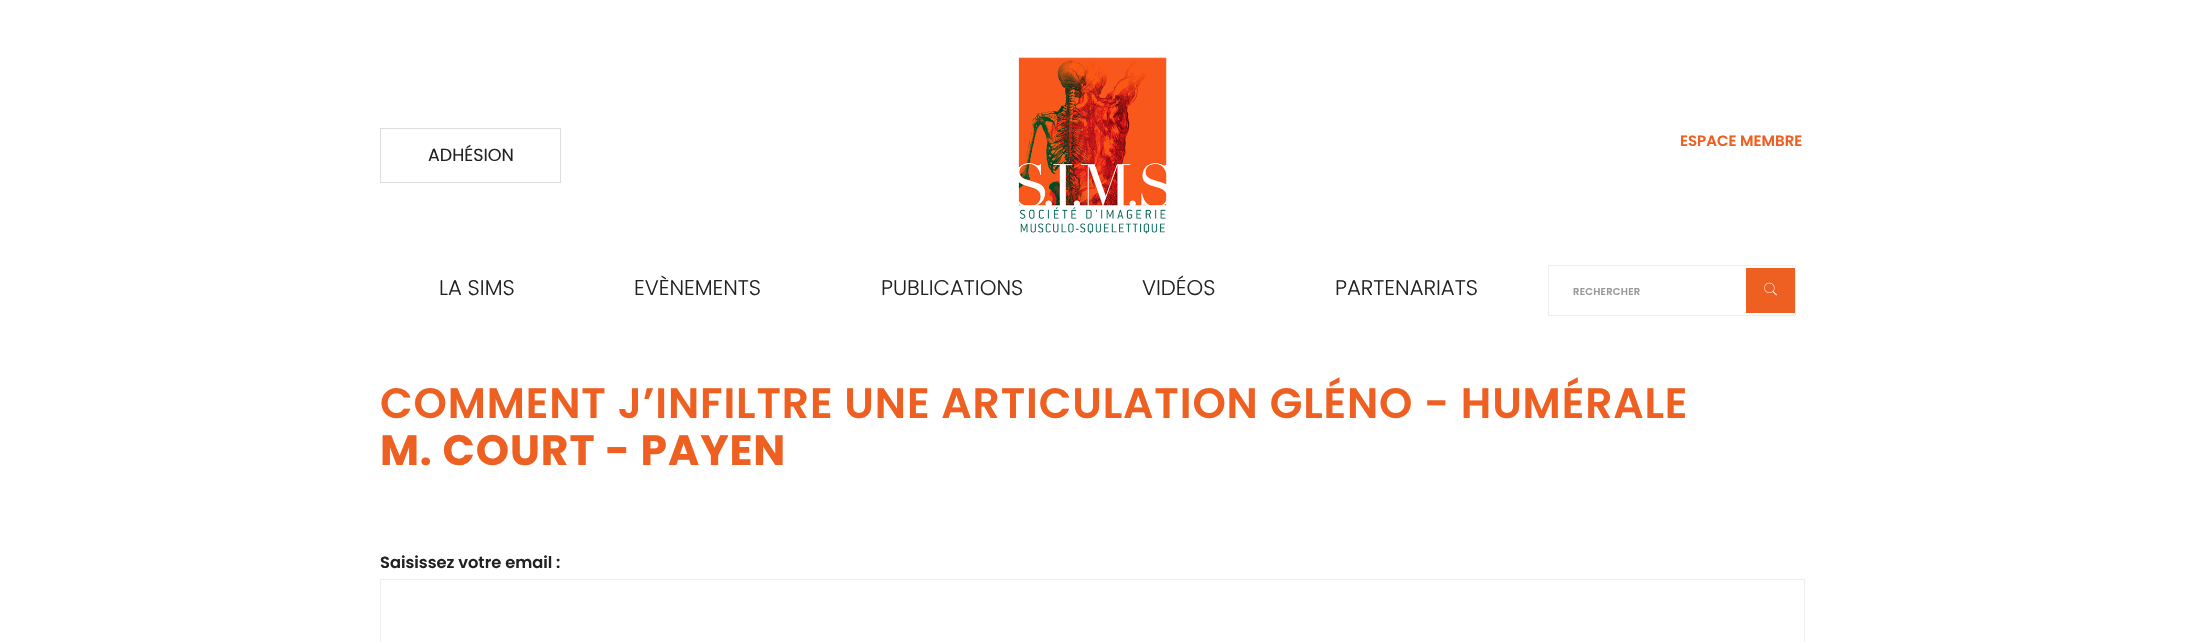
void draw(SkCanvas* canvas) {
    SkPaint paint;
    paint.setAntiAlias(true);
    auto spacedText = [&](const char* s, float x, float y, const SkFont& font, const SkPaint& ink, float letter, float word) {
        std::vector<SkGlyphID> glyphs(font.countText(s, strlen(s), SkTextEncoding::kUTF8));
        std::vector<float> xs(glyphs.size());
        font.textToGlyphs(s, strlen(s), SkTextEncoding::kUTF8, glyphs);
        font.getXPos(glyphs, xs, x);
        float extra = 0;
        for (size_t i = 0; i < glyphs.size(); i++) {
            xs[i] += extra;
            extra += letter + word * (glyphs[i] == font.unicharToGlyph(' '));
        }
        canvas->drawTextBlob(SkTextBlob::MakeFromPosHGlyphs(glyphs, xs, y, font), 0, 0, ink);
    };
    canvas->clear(0xFFFFFFFF);
    canvas->drawImageRect(SkImages::DeferredFromEncodedData(SkData::MakeFromFileName("img1.png")), SkRect::MakeXYWH(1018, 57, 149, 177), SkSamplingOptions());
    SkFont font1(fontMgr->matchFamilyStyle("Poppins", SkFontStyle(600, SkFontStyle::kNormal_Width, SkFontStyle::kUpright_Slant)), 15);
    font1.setSubpixel(true);
    paint.setColor(0xFFEE6022);
    canvas->drawString("ESPACE MEMBRE", 1680, 146, font1, paint);
    paint.setStyle(SkPaint::kStroke_Style);
    paint.setStrokeWidth(1);
    paint.setColor(0xFFDDDDDD);
    canvas->drawRect(SkRect::MakeXYWH(380.5f, 128.5f, 180, 54), paint);
    SkFont font2(fontMgr->matchFamilyStyle("Poppins", SkFontStyle::Normal()), 17.5f);
    font2.setSubpixel(true);
    paint.setStyle(SkPaint::kFill_Style);
    paint.setColor(0xFF222222);
    canvas->drawString("ADHÉSION", 428, 161, font2, paint);
    SkFont font3(fontMgr->matchFamilyStyle("Poppins", SkFontStyle(300, SkFontStyle::kNormal_Width, SkFontStyle::kUpright_Slant)), 21.25f);
    font3.setSubpixel(true);
    canvas->drawString("LA SIMS", 439, 295, font3, paint);
    canvas->drawString("EVÈNEMENTS", 634, 295, font3, paint);
    canvas->drawString("PUBLICATIONS", 881, 295, font3, paint);
    canvas->drawString("VIDÉOS", 1142, 295, font3, paint);
    canvas->drawString("PARTENARIATS", 1335, 295, font3, paint);
    paint.setStyle(SkPaint::kStroke_Style);
    paint.setColor(0xFFEEEEEE);
    canvas->drawRect(SkRect::MakeXYWH(1548.5f, 265.5f, 247, 50), paint);
    SkFont font4(fontMgr->matchFamilyStyle("Poppins", SkFontStyle(600, SkFontStyle::kNormal_Width, SkFontStyle::kUpright_Slant)), 10);
    font4.setSubpixel(true);
    paint.setStyle(SkPaint::kFill_Style);
    paint.setColor(0xFF999999);
    spacedText("RECHERCHER", 1573, 295, font4, paint, 0.25f, 0);
    paint.setColor(0xFFEE6022);
    canvas->drawRect(SkRect::MakeXYWH(1746, 268, 49, 45), paint);
    canvas->drawImageRect(SkImages::DeferredFromEncodedData(SkData::MakeFromFileName("img2.png")), SkRect::MakeXYWH(1764, 282, 13, 14), SkSamplingOptions());
    SkFont font5(fontMgr->matchFamilyStyle("Poppins", SkFontStyle(600, SkFontStyle::kNormal_Width, SkFontStyle::kUpright_Slant)), 42.5f);
    font5.setSubpixel(true);
    spacedText("COMMENT J’INFILTRE UNE ARTICULATION GLÉNO - HUMÉRALE", 380, 418, font5, paint, 0.85f, 0);
    SkFont font6(fontMgr->matchFamilyStyle("Poppins", SkFontStyle::Bold()), 42.5f);
    font6.setSubpixel(true);
    spacedText("M. COURT - PAYEN", 380, 465, font6, paint, 0.85f, 0);
    SkFont font7(fontMgr->matchFamilyStyle("Poppins", SkFontStyle(600, SkFontStyle::kNormal_Width, SkFontStyle::kUpright_Slant)), 16.25f);
    font7.setSubpixel(true);
    paint.setColor(0xFF222222);
    canvas->drawString("Saisissez votre email :", 380, 568, font7, paint);
    paint.setStyle(SkPaint::kStroke_Style);
    paint.setColor(0xFFEEEEEE);
    canvas->drawRect(SkRect::MakeXYWH(380.5f, 579.5f, 1424, 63), paint);
}
